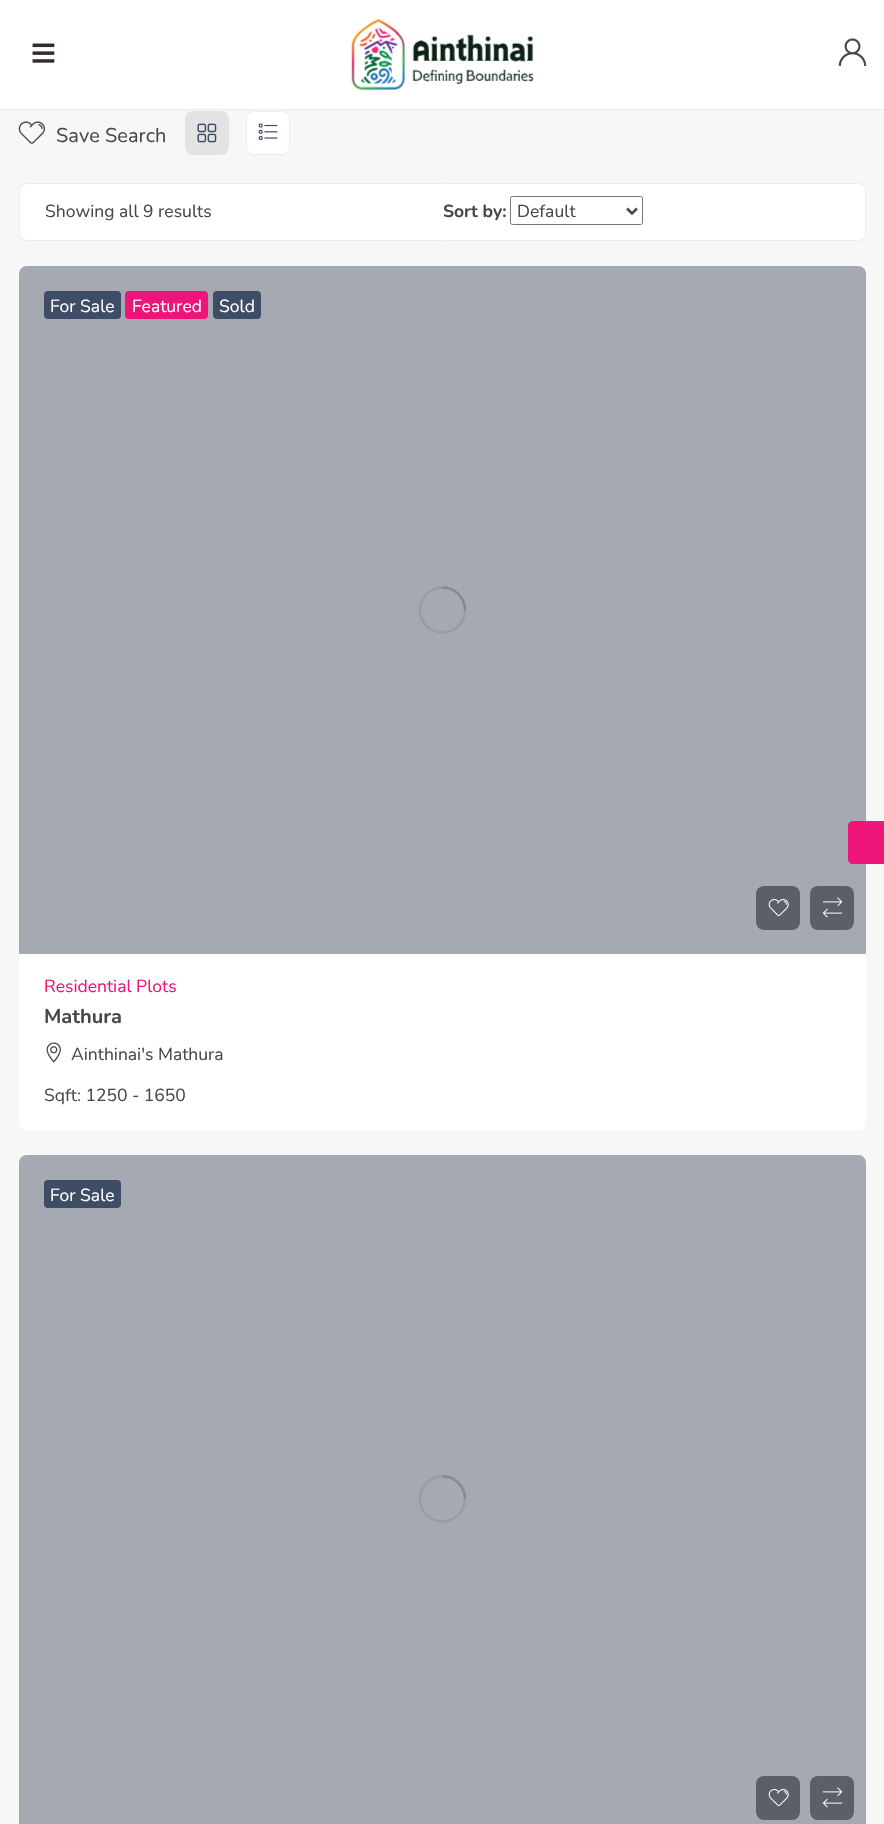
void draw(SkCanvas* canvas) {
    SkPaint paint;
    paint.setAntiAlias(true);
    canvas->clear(0xFFF7F7F7);
    paint.setColor(0xFFFFFFFF);
    canvas->drawRect(SkRect::MakeXYWH(0, 0, 884, 109), paint);
    paint.setColor(0xFFEBEBEB);
    canvas->drawRect(SkRect::MakeXYWH(0, 109, 884, 1), paint);
    canvas->drawImageRect(SkImages::DeferredFromEncodedData(SkData::MakeFromFileName("img1.png")), SkRect::MakeXYWH(32, 43, 23, 20), SkSamplingOptions());
    canvas->drawImageRect(SkImages::DeferredFromEncodedData(SkData::MakeFromFileName("img2.png")), SkRect::MakeXYWH(351, 18, 183, 72), SkSamplingOptions());
    canvas->drawImageRect(SkImages::DeferredFromEncodedData(SkData::MakeFromFileName("img3.png")), SkRect::MakeXYWH(838, 38, 29, 28), SkSamplingOptions());
    canvas->drawImageRect(SkImages::DeferredFromEncodedData(SkData::MakeFromFileName("img4.png")), SkRect::MakeXYWH(18, 121, 27, 23), SkSamplingOptions());
    SkFont font1(fontMgr->matchFamilyStyle("Nunito", SkFontStyle::Normal()), 20);
    font1.setSubpixel(true);
    paint.setColor(0xFF484848);
    canvas->drawString("Save Search", 56, 142, font1, paint);
    paint.setColor(0xFFE3E3E3);
    canvas->drawRoundRect(SkRect::MakeXYWH(185, 111, 44, 44), 8, 8, paint);
    canvas->drawImageRect(SkImages::DeferredFromEncodedData(SkData::MakeFromFileName("img5.png")), SkRect::MakeXYWH(197, 123, 20, 20), SkSamplingOptions());
    paint.setColor(0xFFFFFFFF);
    canvas->drawRoundRect(SkRect::MakeXYWH(246.5f, 111.5f, 43, 43), 7.5f, 7.5f, paint);
    paint.setStyle(SkPaint::kStroke_Style);
    paint.setStrokeWidth(1);
    paint.setColor(0xFFEBEBEB);
    canvas->drawRoundRect(SkRect::MakeXYWH(246.5f, 111.5f, 43, 43), 7.5f, 7.5f, paint);
    canvas->drawImageRect(SkImages::DeferredFromEncodedData(SkData::MakeFromFileName("img6.png")), SkRect::MakeXYWH(258, 123, 20, 17), SkSamplingOptions());
    paint.setStyle(SkPaint::kFill_Style);
    paint.setColor(0xFFFFFFFF);
    canvas->drawRoundRect(SkRect::MakeXYWH(19.5f, 183.5f, 846, 57), 7.5f, 7.5f, paint);
    paint.setStyle(SkPaint::kStroke_Style);
    paint.setColor(0xFFEBEBEB);
    canvas->drawRoundRect(SkRect::MakeXYWH(19.5f, 183.5f, 846, 57), 7.5f, 7.5f, paint);
    SkFont font2(fontMgr->matchFamilyStyle("Nunito", SkFontStyle::Normal()), 17.5f);
    font2.setSubpixel(true);
    paint.setStyle(SkPaint::kFill_Style);
    paint.setColor(0xFF484848);
    canvas->drawString("Showing all 9 results", 45, 217, font2, paint);
    SkFont font3(fontMgr->matchFamilyStyle("Nunito", SkFontStyle::Bold()), 17.5f);
    font3.setSubpixel(true);
    canvas->drawString("Sort by:", 443, 217, font3, paint);
    paint.setStyle(SkPaint::kStroke_Style);
    paint.setColor(0xFF767676);
    canvas->drawRoundRect(SkRect::MakeXYWH(510.5f, 196.5f, 132, 28), 2, 2, paint);
    paint.setStrokeWidth(2.5f);
    paint.setColor(0xFF484848);
    canvas->drawPath(SkPathBuilder().moveTo(627, 208.5f).lineTo(632, 213.5f).lineTo(637, 208.5f).detach(), paint);
    paint.setStyle(SkPaint::kFill_Style);
    canvas->drawString("Default", 517, 217, font2, paint);
    paint.setColor(0xFFFFFFFF);
    canvas->drawRoundRect(SkRect::MakeXYWH(19, 266, 847, 864), 8, 8, paint);
    canvas->save();
    canvas->clipRect(SkRect::MakeXYWH(419, 586, 47, 48));
    paint.setStyle(SkPaint::kStroke_Style);
    paint.setColor(0xFFEAEAEA);
    canvas->drawCircle(442.5f, 610, 22.5f, paint);
    canvas->restore();
    paint.setColor(0x40666666);
    canvas->drawPath(SkPathBuilder().moveTo(465, 610).cubicTo(465, 597.5f, 455, 587.5f, 442.5f, 587.5f).detach(), paint);
    paint.setStyle(SkPaint::kFill_Style);
    paint.setColor(0x661D293E);
    canvas->drawPath(SkPathBuilder().moveTo(27, 266).lineTo(858, 266).cubicTo(862.5f, 266, 866, 269.5f, 866, 274).lineTo(866, 954).lineTo(19, 954).lineTo(19, 274).cubicTo(19, 269.5f, 22.5f, 266, 27, 266).close().detach(), paint);
    paint.setColor(0xFF3E4C66);
    canvas->drawRoundRect(SkRect::MakeXYWH(44, 291, 77, 28), 4, 4, paint);
    paint.setColor(0xFFFFFFFF);
    canvas->drawString("For Sale", 50, 312, font2, paint);
    paint.setColor(0xFFED1579);
    canvas->drawRoundRect(SkRect::MakeXYWH(125, 291, 83, 28), 4, 4, paint);
    paint.setColor(0xFFFFFFFF);
    canvas->drawString("Featured", 132, 312, font2, paint);
    paint.setColor(0xFF3E4C66);
    canvas->drawRoundRect(SkRect::MakeXYWH(213, 291, 48, 28), 4, 4, paint);
    paint.setColor(0xFFFFFFFF);
    canvas->drawString("Sold", 219, 312, font2, paint);
    paint.setColor(0xFF5A5F68);
    canvas->drawRoundRect(SkRect::MakeXYWH(756, 886, 44, 44), 8, 8, paint);
    canvas->drawImageRect(SkImages::DeferredFromEncodedData(SkData::MakeFromFileName("img7.png")), SkRect::MakeXYWH(768, 899, 21, 17), SkSamplingOptions());
    canvas->drawRoundRect(SkRect::MakeXYWH(810, 886, 44, 44), 8, 8, paint);
    canvas->drawImageRect(SkImages::DeferredFromEncodedData(SkData::MakeFromFileName("img8.png")), SkRect::MakeXYWH(822, 897, 21, 21), SkSamplingOptions());
    paint.setColor(0xFFED1579);
    canvas->drawString("Residential Plots", 44, 992, font2, paint);
    SkFont font4(fontMgr->matchFamilyStyle("Nunito", SkFontStyle::Bold()), 20);
    font4.setSubpixel(true);
    paint.setColor(0xFF484848);
    canvas->drawString("Mathura", 44, 1023, font4, paint);
    canvas->drawImageRect(SkImages::DeferredFromEncodedData(SkData::MakeFromFileName("img9.png")), SkRect::MakeXYWH(46, 1042, 15, 21), SkSamplingOptions());
    canvas->drawString("Ainthinai's Mathura", 71, 1060, font2, paint);
    canvas->drawString("Sqft: 1250 - 1650", 44, 1101, font2, paint);
    paint.setColor(0xFFFFFFFF);
    canvas->drawRoundRect(SkRect::MakeXYWH(19, 1155, 847, 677), 8, 8, paint);
    canvas->save();
    canvas->clipRect(SkRect::MakeXYWH(419, 1475, 47, 48));
    paint.setStyle(SkPaint::kStroke_Style);
    paint.setColor(0xFFEAEAEA);
    canvas->drawCircle(442.5f, 1499, 22.5f, paint);
    canvas->restore();
    paint.setColor(0x40666666);
    canvas->drawPath(SkPathBuilder().moveTo(465, 1499).cubicTo(465, 1486.5f, 455, 1476, 442.5f, 1476).detach(), paint);
    paint.setStyle(SkPaint::kFill_Style);
    paint.setColor(0x661D293E);
    canvas->drawPath(SkPathBuilder().moveTo(27, 1155).lineTo(858, 1155).cubicTo(862.5f, 1155, 866, 1158.5f, 866, 1163).lineTo(866, 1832).lineTo(19, 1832).lineTo(19, 1163).cubicTo(19, 1158.5f, 22.5f, 1155, 27, 1155).close().detach(), paint);
    paint.setColor(0xFF3E4C66);
    canvas->drawRoundRect(SkRect::MakeXYWH(44, 1180, 77, 28), 4, 4, paint);
    paint.setColor(0xFFFFFFFF);
    canvas->drawString("For Sale", 50, 1201, font2, paint);
    paint.setColor(0xFF5A5F68);
    canvas->drawRoundRect(SkRect::MakeXYWH(756, 1776, 44, 44), 8, 8, paint);
    canvas->drawImageRect(SkImages::DeferredFromEncodedData(SkData::MakeFromFileName("img7.png")), SkRect::MakeXYWH(768, 1789, 21, 17), SkSamplingOptions());
    canvas->drawRoundRect(SkRect::MakeXYWH(810, 1776, 44, 44), 8, 8, paint);
    canvas->drawImageRect(SkImages::DeferredFromEncodedData(SkData::MakeFromFileName("img8.png")), SkRect::MakeXYWH(822, 1787, 21, 21), SkSamplingOptions());
    paint.setColor(0xFFED1579);
    canvas->drawPath(SkPathBuilder().moveTo(853, 821).lineTo(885, 821).lineTo(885, 864).lineTo(853, 864).cubicTo(850, 864, 848, 862, 848, 859).lineTo(848, 826).cubicTo(848, 823, 850, 821, 853, 821).close().detach(), paint);
}
